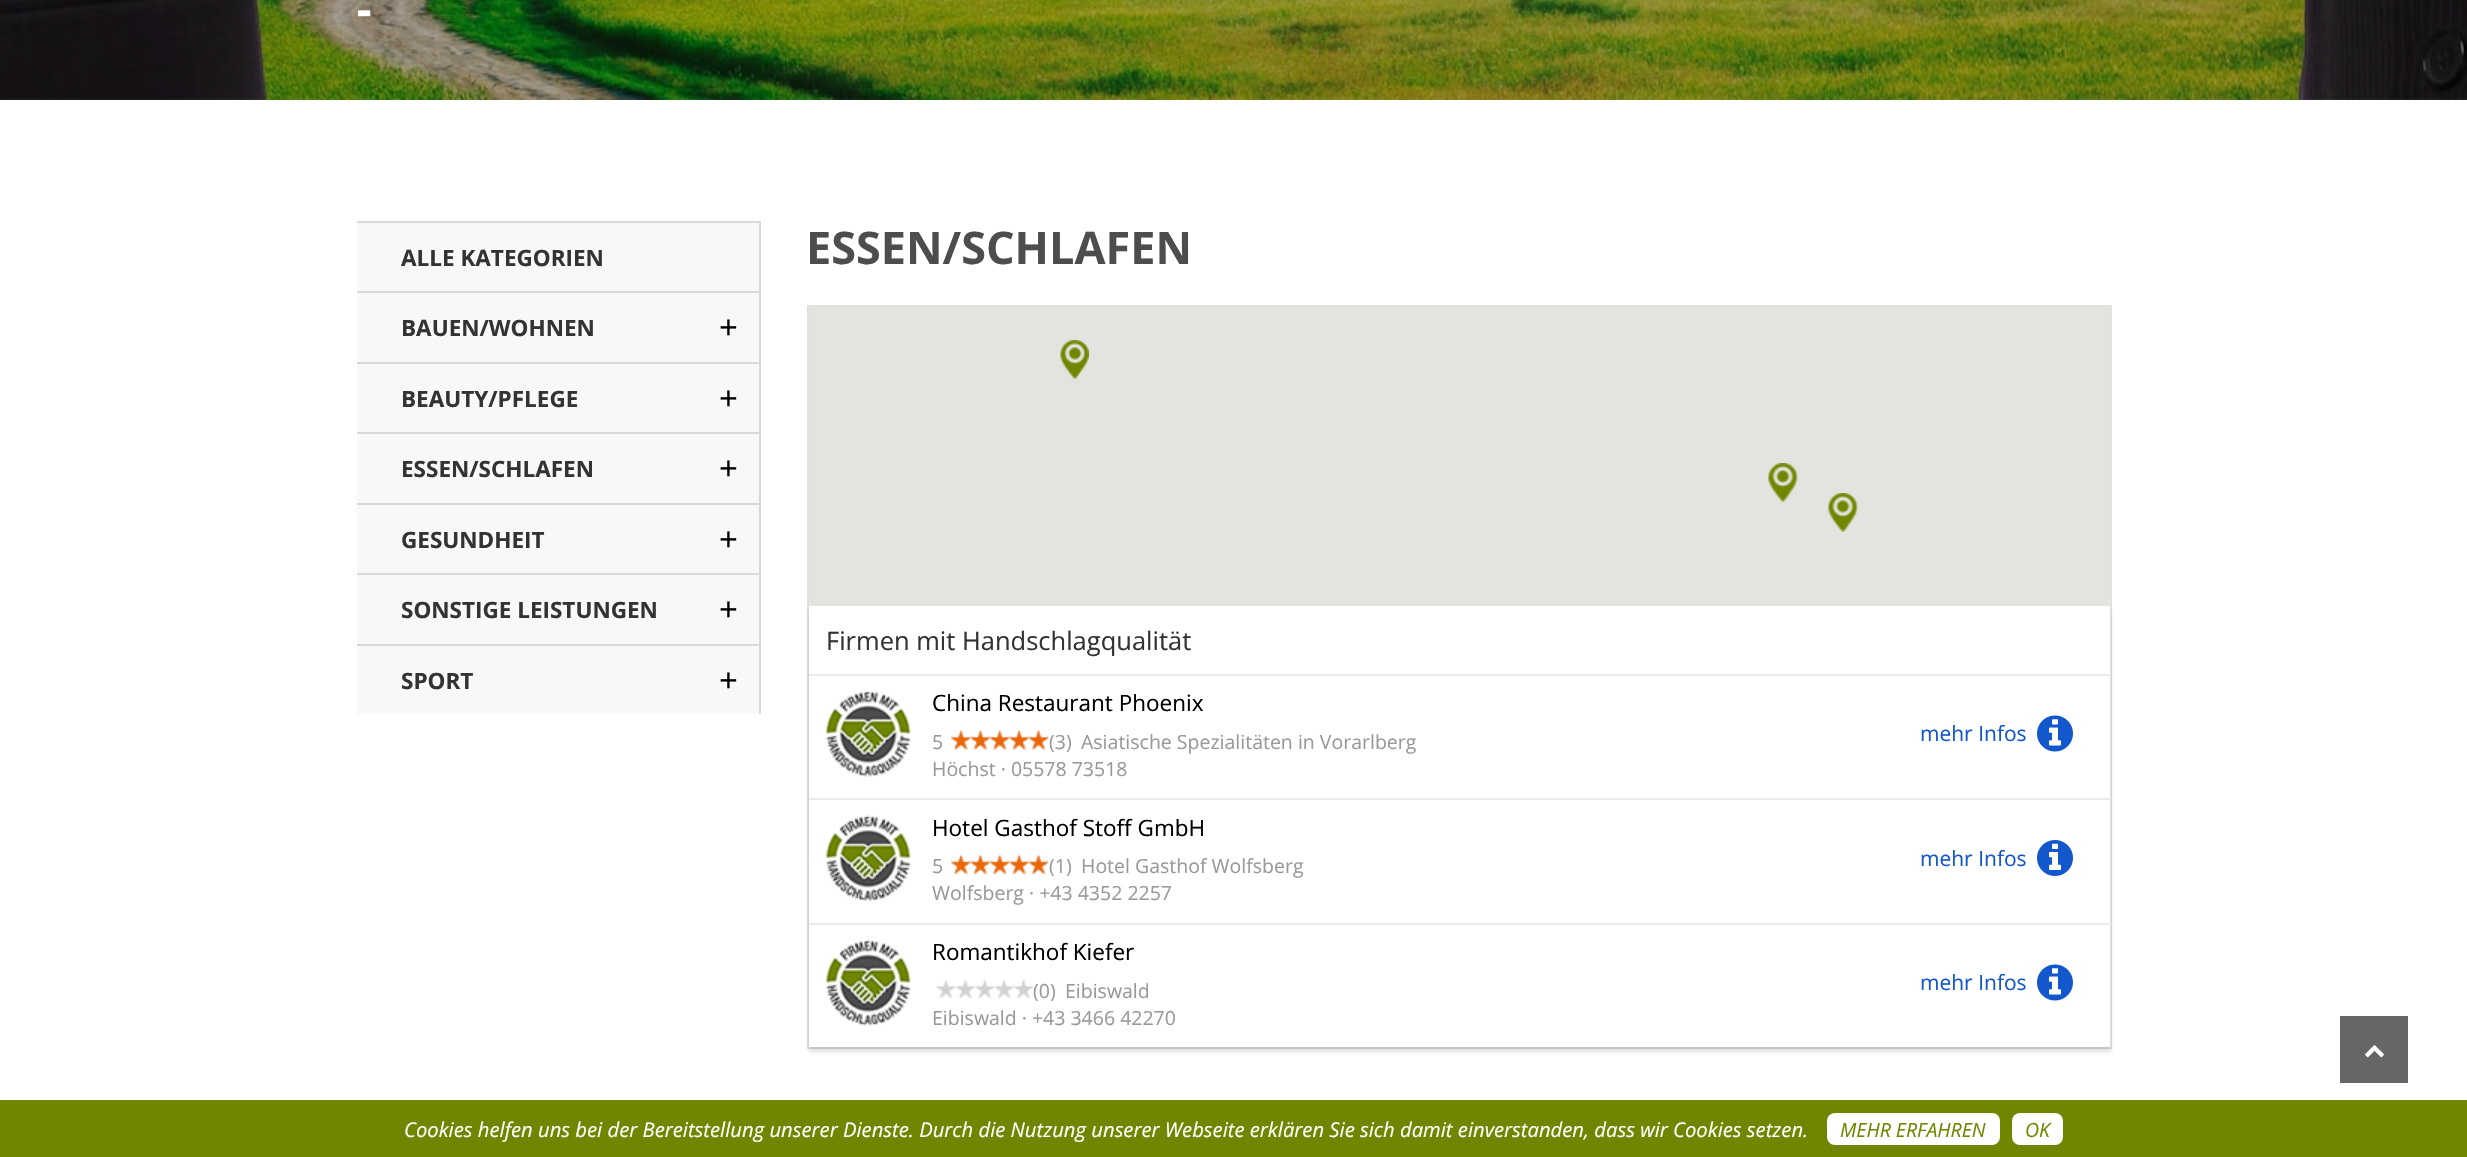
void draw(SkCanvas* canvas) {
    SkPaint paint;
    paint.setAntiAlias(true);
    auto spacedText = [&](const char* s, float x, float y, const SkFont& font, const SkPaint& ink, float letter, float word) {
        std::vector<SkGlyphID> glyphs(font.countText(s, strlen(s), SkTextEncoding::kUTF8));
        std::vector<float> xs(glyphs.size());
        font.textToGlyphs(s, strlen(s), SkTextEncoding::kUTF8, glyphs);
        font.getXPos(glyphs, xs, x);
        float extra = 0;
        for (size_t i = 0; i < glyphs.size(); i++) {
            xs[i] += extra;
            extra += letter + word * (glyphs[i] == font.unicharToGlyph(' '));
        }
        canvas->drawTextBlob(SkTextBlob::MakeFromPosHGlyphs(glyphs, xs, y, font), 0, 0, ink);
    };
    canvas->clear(0xFFFFFFFF);
    canvas->drawImageRect(SkImages::DeferredFromEncodedData(SkData::MakeFromFileName("img1.png")), SkRect::MakeXYWH(0, 0, 2467, 100), SkSamplingOptions());
    SkFont font1(fontMgr->matchFamilyStyle("Raleway", SkFontStyle(100, SkFontStyle::kNormal_Width, SkFontStyle::kUpright_Slant)), 39);
    font1.setSubpixel(true);
    paint.setColor(0xFFFFFFFF);
    spacedText("-", 356, 24, font1, paint, 2, 0);
    paint.setColor(0xFFF8F8F8);
    canvas->drawRect(SkRect::MakeXYWH(357, 223, 402, 68), paint);
    paint.setColor(0xFFD9D9D9);
    canvas->drawRect(SkRect::MakeXYWH(357, 221, 404, 2), paint);
    canvas->drawRect(SkRect::MakeXYWH(759, 221, 2, 70), paint);
    SkFont font2(fontMgr->matchFamilyStyle("Open Sans", SkFontStyle::Bold()), 22.5f);
    font2.setSubpixel(true);
    paint.setColor(0xFF333333);
    canvas->drawString("ALLE KATEGORIEN", 401, 266, font2, paint);
    paint.setColor(0xFFF8F8F8);
    canvas->drawRect(SkRect::MakeXYWH(357, 293, 402, 69), paint);
    paint.setColor(0xFFD9D9D9);
    canvas->drawRect(SkRect::MakeXYWH(357, 291, 404, 2), paint);
    canvas->drawRect(SkRect::MakeXYWH(759, 291, 2, 71), paint);
    paint.setColor(0xFF333333);
    canvas->drawString("BAUEN/WOHNEN", 401, 336, font2, paint);
    SkFont font3(fontMgr->matchFamilyStyle("Open Sans", SkFontStyle::Normal()), 33);
    font3.setSubpixel(true);
    paint.setColor(0xFF000000);
    canvas->drawString("+", 719, 339, font3, paint);
    paint.setColor(0xFFF8F8F8);
    canvas->drawRect(SkRect::MakeXYWH(357, 364, 402, 68), paint);
    paint.setColor(0xFFD9D9D9);
    canvas->drawRect(SkRect::MakeXYWH(357, 362, 404, 2), paint);
    canvas->drawRect(SkRect::MakeXYWH(759, 362, 2, 70), paint);
    paint.setColor(0xFF333333);
    canvas->drawString("BEAUTY/PFLEGE", 401, 407, font2, paint);
    paint.setColor(0xFF000000);
    canvas->drawString("+", 719, 410, font3, paint);
    paint.setColor(0xFFF8F8F8);
    canvas->drawRect(SkRect::MakeXYWH(357, 434, 402, 69), paint);
    paint.setColor(0xFFD9D9D9);
    canvas->drawRect(SkRect::MakeXYWH(357, 432, 404, 2), paint);
    canvas->drawRect(SkRect::MakeXYWH(759, 432, 2, 71), paint);
    paint.setColor(0xFF333333);
    canvas->drawString("ESSEN/SCHLAFEN", 401, 477, font2, paint);
    paint.setColor(0xFF000000);
    canvas->drawString("+", 719, 480, font3, paint);
    paint.setColor(0xFFF8F8F8);
    canvas->drawRect(SkRect::MakeXYWH(357, 505, 402, 68), paint);
    paint.setColor(0xFFD9D9D9);
    canvas->drawRect(SkRect::MakeXYWH(357, 503, 404, 2), paint);
    canvas->drawRect(SkRect::MakeXYWH(759, 503, 2, 70), paint);
    paint.setColor(0xFF333333);
    canvas->drawString("GESUNDHEIT", 401, 548, font2, paint);
    paint.setColor(0xFF000000);
    canvas->drawString("+", 719, 551, font3, paint);
    paint.setColor(0xFFF8F8F8);
    canvas->drawRect(SkRect::MakeXYWH(357, 575, 402, 69), paint);
    paint.setColor(0xFFD9D9D9);
    canvas->drawRect(SkRect::MakeXYWH(357, 573, 404, 2), paint);
    canvas->drawRect(SkRect::MakeXYWH(759, 573, 2, 71), paint);
    paint.setColor(0xFF333333);
    canvas->drawString("SONSTIGE LEISTUNGEN", 401, 618, font2, paint);
    paint.setColor(0xFF000000);
    canvas->drawString("+", 719, 621, font3, paint);
    paint.setColor(0xFFF8F8F8);
    canvas->drawRect(SkRect::MakeXYWH(357, 646, 402, 68), paint);
    paint.setColor(0xFFD9D9D9);
    canvas->drawRect(SkRect::MakeXYWH(357, 644, 404, 2), paint);
    canvas->drawRect(SkRect::MakeXYWH(759, 644, 2, 70), paint);
    paint.setColor(0xFF333333);
    canvas->drawString("SPORT", 401, 689, font2, paint);
    paint.setColor(0xFF000000);
    canvas->drawString("+", 719, 692, font3, paint);
    SkFont font4(fontMgr->matchFamilyStyle("Open Sans", SkFontStyle::Bold()), 45);
    font4.setSubpixel(true);
    paint.setColor(0xFF4D4D4D);
    canvas->drawString("ESSEN/SCHLAFEN", 806, 264, font4, paint);
    paint.setStyle(SkPaint::kStroke_Style);
    paint.setStrokeWidth(2);
    paint.setColor(0xFFDFDFDF);
    canvas->drawRect(SkRect::MakeXYWH(808, 306, 1303, 742), paint);
    canvas->save();
    canvas->clipPath(SkPathBuilder(SkPathFillType::kEvenOdd).moveTo(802, 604).lineTo(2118, 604).lineTo(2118, 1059).lineTo(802, 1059).close().moveTo(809, 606).lineTo(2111, 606).lineTo(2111, 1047).lineTo(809, 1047).close().detach(), true);
    paint.setStyle(SkPaint::kFill_Style);
    paint.setColor(0x26323232);
    paint.setMaskFilter(SkMaskFilter::MakeBlur(kNormal_SkBlurStyle, 2));
    canvas->drawRect(SkRect::MakeXYWH(809, 611, 1302, 441), paint);
    paint.setMaskFilter(nullptr);
    canvas->restore();
    paint.setColor(0xFFE5E3DF);
    canvas->drawRect(SkRect::MakeXYWH(809, 306, 1302, 300), paint);
    canvas->drawImageRect(SkImages::DeferredFromEncodedData(SkData::MakeFromFileName("img2.png")), SkRect::MakeXYWH(1060, 340, 29, 39), SkSamplingOptions());
    canvas->drawImageRect(SkImages::DeferredFromEncodedData(SkData::MakeFromFileName("img3.png")), SkRect::MakeXYWH(1768, 463, 30, 39), SkSamplingOptions());
    canvas->drawImageRect(SkImages::DeferredFromEncodedData(SkData::MakeFromFileName("img4.png")), SkRect::MakeXYWH(1828, 493, 30, 39), SkSamplingOptions());
    SkFont font5(fontMgr->matchFamilyStyle("Open Sans", SkFontStyle::Normal()), 25.5f);
    font5.setSubpixel(true);
    paint.setColor(0xFF333333);
    canvas->drawString("Firmen mit Handschlagqualität", 826, 650, font5, paint);
    paint.setColor(0xFFEBEBEB);
    canvas->drawRect(SkRect::MakeXYWH(809, 674, 1302, 2), paint);
    canvas->drawImageRect(SkImages::DeferredFromEncodedData(SkData::MakeFromFileName("img5.png")), SkRect::MakeXYWH(825, 690, 86, 87), SkSamplingOptions());
    SkFont font6(fontMgr->matchFamilyStyle("Open Sans", SkFontStyle::Normal()), 22.5f);
    font6.setSubpixel(true);
    paint.setColor(0xFF000000);
    canvas->drawString("China Restaurant Phoenix", 932, 711, font6, paint);
    SkFont font7(fontMgr->matchFamilyStyle("Open Sans", SkFontStyle::Normal()), 19.5f);
    font7.setSubpixel(true);
    paint.setColor(0xFF999999);
    canvas->drawString("5", 932, 749, font7, paint);
    canvas->drawImageRect(SkImages::DeferredFromEncodedData(SkData::MakeFromFileName("img6.png")), SkRect::MakeXYWH(951, 730, 98, 20), SkSamplingOptions());
    canvas->drawImageRect(SkImages::DeferredFromEncodedData(SkData::MakeFromFileName("img7.png")), SkRect::MakeXYWH(951, 730, 98, 20), SkSamplingOptions());
    canvas->drawString("(3)", 1049, 749, font7, paint);
    canvas->drawString("Asiatische Spezialitäten in Vorarlberg", 1081, 749, font7, paint);
    canvas->drawString("Höchst · 05578 73518", 932, 776, font7, paint);
    SkFont font8(fontMgr->matchFamilyStyle("Open Sans", SkFontStyle::Normal()), 21);
    font8.setSubpixel(true);
    paint.setColor(0xFF1257CB);
    canvas->drawString("mehr Infos", 1920, 741, font8, paint);
    canvas->drawImageRect(SkImages::DeferredFromEncodedData(SkData::MakeFromFileName("img8.png")), SkRect::MakeXYWH(2037, 715, 36, 37), SkSamplingOptions());
    paint.setColor(0xFFEBEBEB);
    canvas->drawRect(SkRect::MakeXYWH(809, 798, 1302, 2), paint);
    canvas->drawImageRect(SkImages::DeferredFromEncodedData(SkData::MakeFromFileName("img9.png")), SkRect::MakeXYWH(825, 815, 86, 87), SkSamplingOptions());
    paint.setColor(0xFF000000);
    canvas->drawString("Hotel Gasthof Stoff GmbH", 932, 836, font6, paint);
    paint.setColor(0xFF999999);
    canvas->drawString("5", 932, 873, font7, paint);
    canvas->drawImageRect(SkImages::DeferredFromEncodedData(SkData::MakeFromFileName("img10.png")), SkRect::MakeXYWH(951, 854, 98, 21), SkSamplingOptions());
    canvas->drawImageRect(SkImages::DeferredFromEncodedData(SkData::MakeFromFileName("img11.png")), SkRect::MakeXYWH(951, 854, 98, 21), SkSamplingOptions());
    canvas->drawString("(1)", 1049, 873, font7, paint);
    canvas->drawString("Hotel Gasthof Wolfsberg", 1081, 873, font7, paint);
    canvas->drawString("Wolfsberg · +43 4352 2257", 932, 900, font7, paint);
    paint.setColor(0xFF1257CB);
    canvas->drawString("mehr Infos", 1920, 866, font8, paint);
    canvas->drawImageRect(SkImages::DeferredFromEncodedData(SkData::MakeFromFileName("img12.png")), SkRect::MakeXYWH(2037, 840, 36, 36), SkSamplingOptions());
    paint.setColor(0xFFEBEBEB);
    canvas->drawRect(SkRect::MakeXYWH(809, 923, 1302, 2), paint);
    canvas->drawImageRect(SkImages::DeferredFromEncodedData(SkData::MakeFromFileName("img5.png")), SkRect::MakeXYWH(825, 939, 86, 87), SkSamplingOptions());
    paint.setColor(0xFF000000);
    canvas->drawString("Romantikhof Kiefer", 932, 960, font6, paint);
    paint.setColor(0xFF999999);
    canvas->drawString("(0)", 1033, 998, font7, paint);
    canvas->drawImageRect(SkImages::DeferredFromEncodedData(SkData::MakeFromFileName("img13.png")), SkRect::MakeXYWH(936, 979, 98, 20), SkSamplingOptions());
    canvas->drawString("Eibiswald", 1065, 998, font7, paint);
    canvas->drawString("Eibiswald · +43 3466 42270", 932, 1025, font7, paint);
    paint.setColor(0xFF1257CB);
    canvas->drawString("mehr Infos", 1920, 990, font8, paint);
    canvas->drawImageRect(SkImages::DeferredFromEncodedData(SkData::MakeFromFileName("img8.png")), SkRect::MakeXYWH(2037, 964, 36, 37), SkSamplingOptions());
    paint.setColor(0xFF666666);
    canvas->drawRect(SkRect::MakeXYWH(2340, 1016, 68, 67), paint);
    canvas->drawImageRect(SkImages::DeferredFromEncodedData(SkData::MakeFromFileName("img14.png")), SkRect::MakeXYWH(2365, 1045, 19, 13), SkSamplingOptions());
    paint.setColor(0xFF708600);
    canvas->drawRect(SkRect::MakeXYWH(0, 1100, 2467, 57), paint);
    SkFont font9(fontMgr->matchFamilyStyle("Open Sans", SkFontStyle::Italic()), 20.25f);
    font9.setSubpixel(true);
    paint.setColor(0xFFFFFFFF);
    canvas->drawString("Cookies helfen uns bei der Bereitstellung unserer Dienste. Durch die Nutzung unserer Webseite erklären Sie sich damit einverstanden, dass wir Cookies setzen.", 404, 1137, font9, paint);
    canvas->drawRoundRect(SkRect::MakeXYWH(1827, 1113, 173, 32), 8, 8, paint);
    SkFont font10(fontMgr->matchFamilyStyle("Open Sans", SkFontStyle::Italic()), 19.5f);
    font10.setSubpixel(true);
    paint.setColor(0xFF708600);
    canvas->drawString("MEHR ERFAHREN", 1840, 1137, font10, paint);
    paint.setColor(0xFFFFFFFF);
    canvas->drawRoundRect(SkRect::MakeXYWH(2012, 1113, 51, 32), 8, 8, paint);
    paint.setColor(0xFF708600);
    canvas->drawString("OK", 2025, 1137, font10, paint);
}
